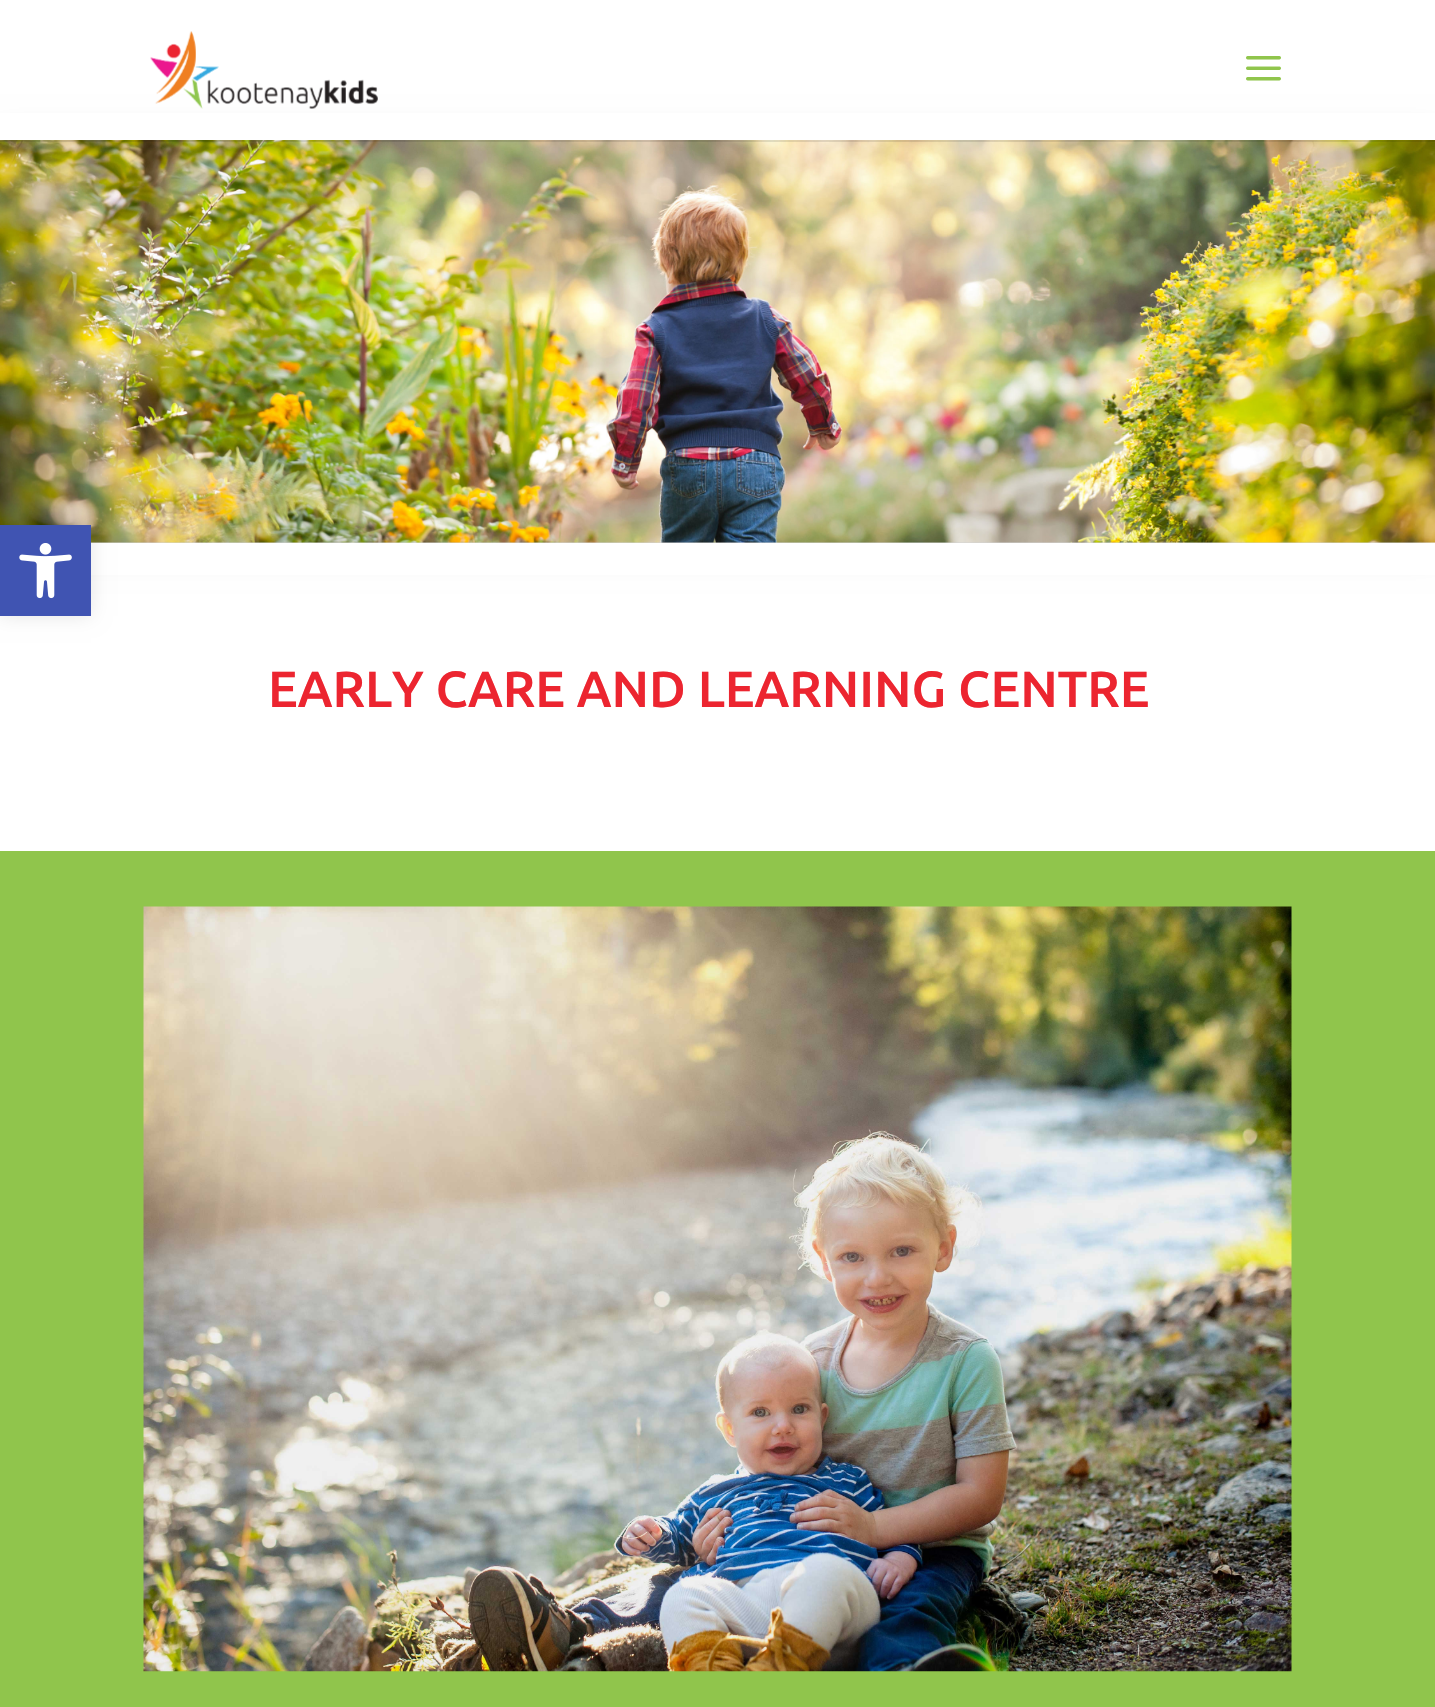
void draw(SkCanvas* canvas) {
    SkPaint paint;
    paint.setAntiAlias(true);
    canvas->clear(0xFFFFFFFF);
    paint.setColor(0x4D000000);
    paint.setMaskFilter(SkMaskFilter::MakeBlur(kNormal_SkBlurStyle, 16));
    canvas->drawRect(SkRect::MakeXYWH(0, 142, 1435, 404), paint);
    paint.setMaskFilter(nullptr);
    canvas->drawImageRect(SkImages::DeferredFromEncodedData(SkData::MakeFromFileName("img4.png")), SkRect::MakeXYWH(0, 140, 1435, 403), SkSamplingOptions());
    paint.setColor(0xFFFFFFFF);
    canvas->drawRect(SkRect::MakeXYWH(0, 543, 1435, 32), paint);
    paint.setColor(0x1A000000);
    paint.setMaskFilter(SkMaskFilter::MakeBlur(kNormal_SkBlurStyle, 9));
    canvas->drawRect(SkRect::MakeXYWH(0, 525, 91, 91), paint);
    paint.setMaskFilter(nullptr);
    paint.setColor(0xFF4054B2);
    canvas->drawRect(SkRect::MakeXYWH(0, 525, 91, 91), paint);
    canvas->drawImageRect(SkImages::DeferredFromEncodedData(SkData::MakeFromFileName("img1.png")), SkRect::MakeXYWH(19, 543, 53, 56), SkSamplingOptions());
    paint.setColor(0x1A000000);
    canvas->drawRect(SkRect::MakeXYWH(0, 140, 1435, 2), paint);
    paint.setColor(0xFFFFFFFF);
    canvas->drawRect(SkRect::MakeXYWH(0, 113, 1435, 27), paint);
    canvas->drawImageRect(SkImages::DeferredFromEncodedData(SkData::MakeFromFileName("img2.png")), SkRect::MakeXYWH(150, 31, 228, 78), SkSamplingOptions());
    canvas->drawImageRect(SkImages::DeferredFromEncodedData(SkData::MakeFromFileName("img3.png")), SkRect::MakeXYWH(1246, 56, 35, 25), SkSamplingOptions());
    SkFont font1(fontMgr->matchFamilyStyle("Ubuntu", SkFontStyle(500, SkFontStyle::kNormal_Width, SkFontStyle::kUpright_Slant)), 50.75f);
    font1.setSubpixel(true);
    paint.setColor(0xFFEC2530);
    canvas->drawString("EARLY CARE AND LEARNING CENTRE", 268, 707, font1, paint);
    paint.setColor(0xFF90C54C);
    canvas->drawRect(SkRect::MakeXYWH(0, 851, 1435, 856), paint);
    canvas->drawImageRect(SkImages::DeferredFromEncodedData(SkData::MakeFromFileName("img5.png")), SkRect::MakeXYWH(143, 906, 1149, 766), SkSamplingOptions());
}
